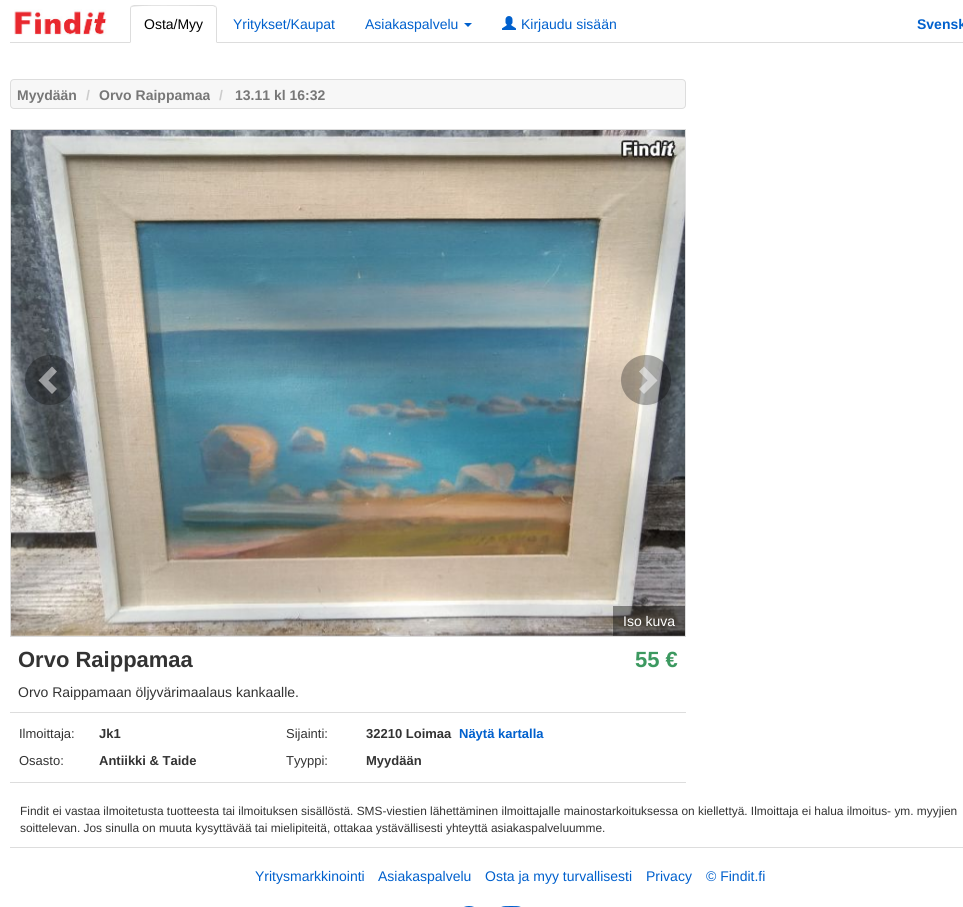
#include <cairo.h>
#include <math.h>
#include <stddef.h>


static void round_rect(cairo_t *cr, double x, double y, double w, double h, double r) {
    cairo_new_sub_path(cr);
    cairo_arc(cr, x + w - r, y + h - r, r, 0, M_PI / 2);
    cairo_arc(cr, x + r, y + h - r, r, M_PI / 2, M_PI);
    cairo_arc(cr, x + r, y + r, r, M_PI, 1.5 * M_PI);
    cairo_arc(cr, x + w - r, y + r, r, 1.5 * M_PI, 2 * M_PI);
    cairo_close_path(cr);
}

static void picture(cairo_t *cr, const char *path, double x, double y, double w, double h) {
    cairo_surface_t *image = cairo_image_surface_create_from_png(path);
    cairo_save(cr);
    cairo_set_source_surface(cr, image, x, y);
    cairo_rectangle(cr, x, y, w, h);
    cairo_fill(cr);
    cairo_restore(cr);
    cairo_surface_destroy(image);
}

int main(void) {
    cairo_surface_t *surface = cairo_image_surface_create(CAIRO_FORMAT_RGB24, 963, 907);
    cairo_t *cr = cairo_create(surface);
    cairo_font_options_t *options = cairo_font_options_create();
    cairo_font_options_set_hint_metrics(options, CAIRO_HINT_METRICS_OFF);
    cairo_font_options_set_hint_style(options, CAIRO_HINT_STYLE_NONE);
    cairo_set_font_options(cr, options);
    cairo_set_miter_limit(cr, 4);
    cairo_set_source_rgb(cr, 1, 1, 1);
    cairo_paint(cr);
    cairo_set_source_rgb(cr, 0.867, 0.867, 0.867);
    cairo_rectangle(cr, 10, 42, 953, 1);
    cairo_fill(cr);
    picture(cr, "img1.png", 14, 9, 93, 26);
    cairo_set_source_rgb(cr, 1, 1, 1);
    cairo_new_path(cr);
    cairo_move_to(cr, 134, 5);
    cairo_line_to(cr, 213, 5);
    cairo_curve_to(cr, 215, 5, 217, 7, 217, 9);
    cairo_line_to(cr, 217, 43);
    cairo_line_to(cr, 130, 43);
    cairo_line_to(cr, 130, 9);
    cairo_curve_to(cr, 130, 7, 132, 5, 134, 5);
    cairo_close_path(cr);
    cairo_fill(cr);
    cairo_set_source_rgb(cr, 0.867, 0.867, 0.867);
    cairo_new_path(cr);
    cairo_move_to(cr, 134, 5);
    cairo_line_to(cr, 131, 6);
    cairo_line_to(cr, 132, 7);
    cairo_curve_to(cr, 134, 5, 193, 6, 200, 6);
    cairo_line_to(cr, 213, 6);
    cairo_line_to(cr, 215, 7);
    cairo_line_to(cr, 216, 6);
    cairo_line_to(cr, 213, 5);
    cairo_close_path(cr);
    cairo_fill(cr);
    cairo_new_path(cr);
    cairo_move_to(cr, 217, 43);
    cairo_line_to(cr, 217, 9);
    cairo_curve_to(cr, 217, 8, 216.5, 7, 216, 6);
    cairo_line_to(cr, 215, 7);
    cairo_curve_to(cr, 216, 7, 216, 8, 216, 9);
    cairo_line_to(cr, 216, 42);
    cairo_close_path(cr);
    cairo_fill(cr);
    cairo_new_path(cr);
    cairo_move_to(cr, 130, 43);
    cairo_line_to(cr, 131, 42);
    cairo_line_to(cr, 131, 9);
    cairo_curve_to(cr, 131, 8, 131, 7, 132, 7);
    cairo_line_to(cr, 131, 6);
    cairo_curve_to(cr, 130.5, 7, 130, 8, 130, 9);
    cairo_close_path(cr);
    cairo_fill(cr);
    cairo_select_font_face(cr, "Liberation Sans", CAIRO_FONT_SLANT_NORMAL, CAIRO_FONT_WEIGHT_NORMAL);
    cairo_set_font_size(cr, 14);
    cairo_set_source_rgb(cr, 0, 0, 0);
    cairo_move_to(cr, 144, 29);
    cairo_show_text(cr, "Osta/Myy");
    cairo_set_source_rgb(cr, 0, 0.376, 0.804);
    cairo_move_to(cr, 233, 29);
    cairo_show_text(cr, "Yritykset/Kaupat");
    cairo_move_to(cr, 365, 29);
    cairo_show_text(cr, "Asiakaspalvelu");
    cairo_new_path(cr);
    cairo_move_to(cr, 464, 23);
    cairo_line_to(cr, 472, 23);
    cairo_line_to(cr, 468, 27);
    cairo_close_path(cr);
    cairo_fill(cr);
    picture(cr, "img2.png", 502, 16, 14, 14);
    cairo_move_to(cr, 521, 29);
    cairo_show_text(cr, "Kirjaudu sisään");
    cairo_select_font_face(cr, "Liberation Sans", CAIRO_FONT_SLANT_NORMAL, CAIRO_FONT_WEIGHT_BOLD);
    cairo_move_to(cr, 917, 29);
    cairo_show_text(cr, "Svensk");
    cairo_set_source_rgb(cr, 0.965, 0.965, 0.965);
    round_rect(cr, 10.5, 79.5, 675, 29, 3.5);
    cairo_fill_preserve(cr);
    cairo_set_source_rgb(cr, 0.867, 0.867, 0.867);
    cairo_set_line_width(cr, 1);
    cairo_stroke(cr);
    cairo_set_source_rgb(cr, 0.467, 0.467, 0.467);
    cairo_move_to(cr, 17, 100);
    cairo_show_text(cr, "Myydään");
    cairo_set_source_rgb(cr, 0.8, 0.8, 0.8);
    cairo_move_to(cr, 86, 100);
    cairo_show_text(cr, "/");
    cairo_set_source_rgb(cr, 0.467, 0.467, 0.467);
    cairo_move_to(cr, 99, 100);
    cairo_show_text(cr, "Orvo Raippamaa");
    cairo_set_source_rgb(cr, 0.8, 0.8, 0.8);
    cairo_move_to(cr, 219, 100);
    cairo_show_text(cr, "/");
    cairo_set_source_rgb(cr, 0.467, 0.467, 0.467);
    cairo_move_to(cr, 235, 100);
    cairo_show_text(cr, "13.11 kl 16:32");
    cairo_rectangle(cr, 10.5, 129.5, 675, 507);
    cairo_set_source_rgb(cr, 0.867, 0.867, 0.867);
    cairo_stroke(cr);
    picture(cr, "img3.png", 11, 130, 674, 506);
    cairo_set_source_rgba(cr, 0, 0, 0, 0.3);
    cairo_arc(cr, 50, 380, 25, 0, 2 * M_PI);
    cairo_fill(cr);
    cairo_set_source_rgba(cr, 1, 1, 1, 0.5);
    cairo_new_path(cr);
    cairo_move_to(cr, 57, 371.5);
    cairo_line_to(cr, 48.5, 380.5);
    cairo_line_to(cr, 57, 389);
    cairo_line_to(cr, 52, 394);
    cairo_line_to(cr, 38.5, 380.5);
    cairo_line_to(cr, 52, 366.5);
    cairo_close_path(cr);
    cairo_fill(cr);
    cairo_set_source_rgba(cr, 0, 0, 0, 0.3);
    cairo_arc(cr, 646, 380, 25, 0, 2 * M_PI);
    cairo_fill(cr);
    cairo_set_source_rgba(cr, 1, 1, 1, 0.5);
    cairo_new_path(cr);
    cairo_move_to(cr, 657.5, 380.5);
    cairo_line_to(cr, 644, 394);
    cairo_line_to(cr, 639, 389);
    cairo_line_to(cr, 647.5, 380.5);
    cairo_line_to(cr, 639, 371.5);
    cairo_line_to(cr, 644, 366.5);
    cairo_close_path(cr);
    cairo_fill(cr);
    cairo_set_source_rgba(cr, 0, 0, 0, 0.4);
    cairo_rectangle(cr, 613, 606, 72, 30);
    cairo_fill(cr);
    cairo_select_font_face(cr, "Liberation Sans", CAIRO_FONT_SLANT_NORMAL, CAIRO_FONT_WEIGHT_NORMAL);
    cairo_set_source_rgb(cr, 1, 1, 1);
    cairo_move_to(cr, 623, 626);
    cairo_show_text(cr, "Iso kuva");
    cairo_select_font_face(cr, "Liberation Sans", CAIRO_FONT_SLANT_NORMAL, CAIRO_FONT_WEIGHT_BOLD);
    cairo_set_font_size(cr, 22);
    cairo_set_source_rgb(cr, 0.2, 0.2, 0.2);
    cairo_move_to(cr, 18, 667);
    cairo_show_text(cr, "Orvo Raippamaa");
    cairo_set_source_rgb(cr, 0.235, 0.6, 0.376);
    cairo_move_to(cr, 635, 667);
    cairo_show_text(cr, "55 €");
    cairo_select_font_face(cr, "Liberation Sans", CAIRO_FONT_SLANT_NORMAL, CAIRO_FONT_WEIGHT_NORMAL);
    cairo_set_font_size(cr, 14);
    cairo_set_source_rgb(cr, 0.2, 0.2, 0.2);
    cairo_move_to(cr, 18, 697);
    cairo_show_text(cr, "Orvo Raippamaan öljyvärimaalaus kankaalle.");
    cairo_set_source_rgb(cr, 0.867, 0.867, 0.867);
    cairo_rectangle(cr, 10, 712, 676, 1);
    cairo_fill(cr);
    cairo_rectangle(cr, 10, 782, 676, 1);
    cairo_fill(cr);
    cairo_set_font_size(cr, 13);
    cairo_set_source_rgb(cr, 0.2, 0.2, 0.2);
    cairo_move_to(cr, 19, 738);
    cairo_show_text(cr, "Ilmoittaja:");
    cairo_select_font_face(cr, "Liberation Sans", CAIRO_FONT_SLANT_NORMAL, CAIRO_FONT_WEIGHT_BOLD);
    cairo_move_to(cr, 99, 738);
    cairo_show_text(cr, "Jk1");
    cairo_select_font_face(cr, "Liberation Sans", CAIRO_FONT_SLANT_NORMAL, CAIRO_FONT_WEIGHT_NORMAL);
    cairo_move_to(cr, 286, 738);
    cairo_show_text(cr, "Sijainti:");
    cairo_select_font_face(cr, "Liberation Sans", CAIRO_FONT_SLANT_NORMAL, CAIRO_FONT_WEIGHT_BOLD);
    cairo_move_to(cr, 366, 738);
    cairo_show_text(cr, "32210 Loimaa");
    cairo_set_source_rgb(cr, 0, 0.376, 0.804);
    cairo_move_to(cr, 459, 738);
    cairo_show_text(cr, "Näytä kartalla");
    cairo_select_font_face(cr, "Liberation Sans", CAIRO_FONT_SLANT_NORMAL, CAIRO_FONT_WEIGHT_NORMAL);
    cairo_set_source_rgb(cr, 0.2, 0.2, 0.2);
    cairo_move_to(cr, 19, 765);
    cairo_show_text(cr, "Osasto:");
    cairo_select_font_face(cr, "Liberation Sans", CAIRO_FONT_SLANT_NORMAL, CAIRO_FONT_WEIGHT_BOLD);
    cairo_move_to(cr, 99, 765);
    cairo_show_text(cr, "Antiikki & Taide");
    cairo_select_font_face(cr, "Liberation Sans", CAIRO_FONT_SLANT_NORMAL, CAIRO_FONT_WEIGHT_NORMAL);
    cairo_move_to(cr, 286, 765);
    cairo_show_text(cr, "Tyyppi:");
    cairo_select_font_face(cr, "Liberation Sans", CAIRO_FONT_SLANT_NORMAL, CAIRO_FONT_WEIGHT_BOLD);
    cairo_move_to(cr, 366, 765);
    cairo_show_text(cr, "Myydään");
    cairo_select_font_face(cr, "Liberation Sans", CAIRO_FONT_SLANT_NORMAL, CAIRO_FONT_WEIGHT_NORMAL);
    cairo_set_font_size(cr, 11.9);
    cairo_move_to(cr, 20, 815);
    cairo_show_text(cr, "Findit ei vastaa ilmoitetusta tuotteesta tai ilmoituksen sisällöstä. SMS-viestien lähettäminen ilmoittajalle mainostarkoituksessa on kiellettyä. Ilmoittaja ei halua ilmoitus- ym. myyjien");
    cairo_move_to(cr, 20, 832);
    cairo_show_text(cr, "soittelevan. Jos sinulla on muuta kysyttävää tai mielipiteitä, ottakaa ystävällisesti yhteyttä asiakaspalveluumme.");
    cairo_set_source_rgb(cr, 0.867, 0.867, 0.867);
    cairo_rectangle(cr, 10, 847, 953, 1);
    cairo_fill(cr);
    cairo_set_font_size(cr, 14);
    cairo_set_source_rgb(cr, 0, 0.376, 0.804);
    cairo_move_to(cr, 255, 881);
    cairo_show_text(cr, "Yritysmarkkinointi");
    cairo_move_to(cr, 378, 881);
    cairo_show_text(cr, "Asiakaspalvelu");
    cairo_move_to(cr, 485, 881);
    cairo_show_text(cr, "Osta ja myy turvallisesti");
    cairo_move_to(cr, 646, 881);
    cairo_show_text(cr, "Privacy");
    cairo_move_to(cr, 706, 881);
    cairo_show_text(cr, "© Findit.fi");
    picture(cr, "img4.png", 464, 906, 10, 1);
    picture(cr, "img5.png", 501, 906, 20, 1);
    cairo_surface_write_to_png(surface, "page.png");
    cairo_font_options_destroy(options);
    cairo_destroy(cr);
    cairo_surface_destroy(surface);
    return 0;
}
